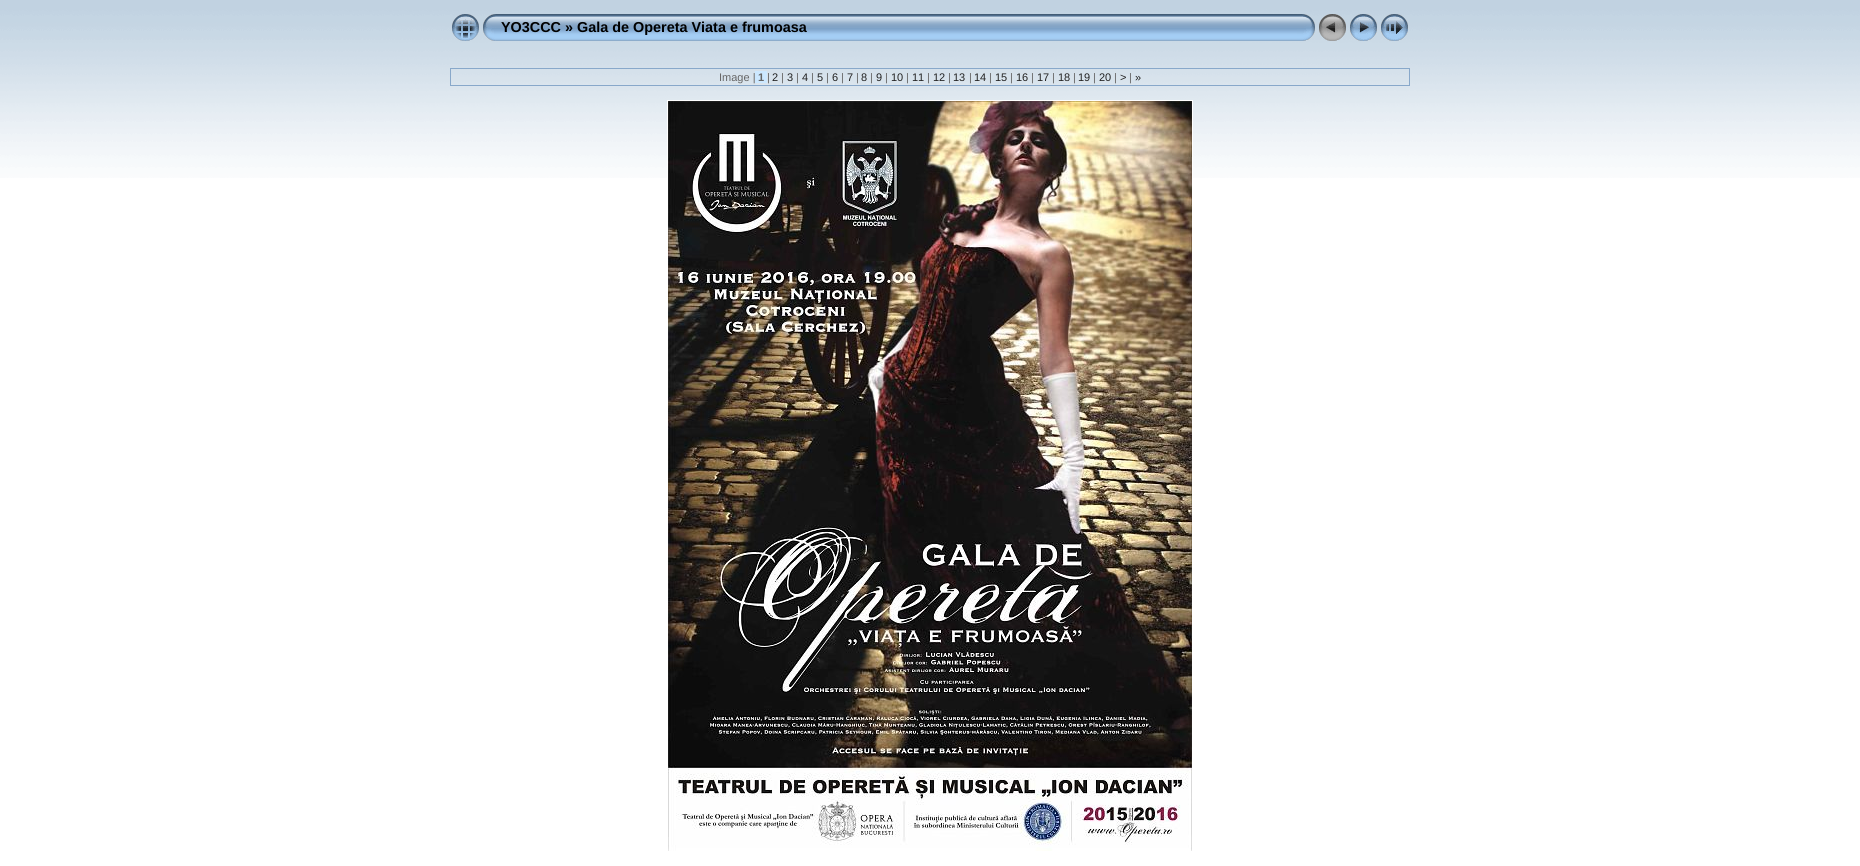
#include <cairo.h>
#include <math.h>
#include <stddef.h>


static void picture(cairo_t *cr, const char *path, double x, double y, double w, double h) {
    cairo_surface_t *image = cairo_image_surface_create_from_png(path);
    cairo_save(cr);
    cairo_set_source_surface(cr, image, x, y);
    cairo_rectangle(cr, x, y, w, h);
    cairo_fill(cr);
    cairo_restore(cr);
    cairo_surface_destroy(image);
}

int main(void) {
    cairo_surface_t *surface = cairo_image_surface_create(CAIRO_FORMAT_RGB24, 1860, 866);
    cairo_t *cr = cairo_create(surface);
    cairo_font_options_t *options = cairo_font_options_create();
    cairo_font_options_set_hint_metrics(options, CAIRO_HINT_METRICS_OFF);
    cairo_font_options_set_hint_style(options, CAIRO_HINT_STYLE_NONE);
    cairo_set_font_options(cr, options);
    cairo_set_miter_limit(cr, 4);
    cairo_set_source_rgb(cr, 1, 1, 1);
    cairo_paint(cr);
    picture(cr, "img1.png", 0, 0, 1860, 178);
    picture(cr, "img2.png", 452, 14, 27, 27);
    picture(cr, "img3.png", 483, 14, 18, 27);
    picture(cr, "img4.png", 501, 14, 796, 27);
    cairo_select_font_face(cr, "Liberation Sans", CAIRO_FONT_SLANT_NORMAL, CAIRO_FONT_WEIGHT_BOLD);
    cairo_set_font_size(cr, 14.4);
    cairo_set_source_rgb(cr, 0, 0, 0);
    cairo_move_to(cr, 501, 32);
    cairo_show_text(cr, "YO3CCC » Gala de Opereta Viata e frumoasa");
    picture(cr, "img5.png", 1297, 14, 18, 27);
    picture(cr, "img6.png", 1319, 14, 27, 27);
    picture(cr, "img7.png", 1350, 14, 27, 27);
    picture(cr, "img8.png", 1381, 14, 27, 27);
    cairo_set_source_rgb(cr, 0.533, 0.659, 0.792);
    cairo_rectangle(cr, 450, 68, 960, 1);
    cairo_fill(cr);
    cairo_rectangle(cr, 1409, 68, 1, 18);
    cairo_fill(cr);
    cairo_rectangle(cr, 450, 85, 960, 1);
    cairo_fill(cr);
    cairo_rectangle(cr, 450, 68, 1, 18);
    cairo_fill(cr);
    cairo_select_font_face(cr, "Liberation Sans", CAIRO_FONT_SLANT_NORMAL, CAIRO_FONT_WEIGHT_NORMAL);
    cairo_set_font_size(cr, 11);
    cairo_set_source_rgb(cr, 0.4, 0.4, 0.4);
    cairo_move_to(cr, 719, 81);
    cairo_show_text(cr, "Image |");
    cairo_set_source_rgb(cr, 0.8, 0.91, 1);
    cairo_rectangle(cr, 755, 71, 12, 12);
    cairo_fill(cr);
    cairo_select_font_face(cr, "Liberation Sans", CAIRO_FONT_SLANT_NORMAL, CAIRO_FONT_WEIGHT_BOLD);
    cairo_set_source_rgb(cr, 0.4, 0.4, 0.4);
    cairo_move_to(cr, 758, 81);
    cairo_show_text(cr, "1");
    cairo_select_font_face(cr, "Liberation Sans", CAIRO_FONT_SLANT_NORMAL, CAIRO_FONT_WEIGHT_NORMAL);
    cairo_move_to(cr, 767, 81);
    cairo_show_text(cr, "|");
    cairo_set_source_rgb(cr, 0.133, 0.133, 0.133);
    cairo_move_to(cr, 772, 81);
    cairo_show_text(cr, "2");
    cairo_set_source_rgb(cr, 0.4, 0.4, 0.4);
    cairo_move_to(cr, 781, 81);
    cairo_show_text(cr, "|");
    cairo_set_source_rgb(cr, 0.133, 0.133, 0.133);
    cairo_move_to(cr, 787, 81);
    cairo_show_text(cr, "3");
    cairo_set_source_rgb(cr, 0.4, 0.4, 0.4);
    cairo_move_to(cr, 796, 81);
    cairo_show_text(cr, "|");
    cairo_set_source_rgb(cr, 0.133, 0.133, 0.133);
    cairo_move_to(cr, 802, 81);
    cairo_show_text(cr, "4");
    cairo_set_source_rgb(cr, 0.4, 0.4, 0.4);
    cairo_move_to(cr, 811, 81);
    cairo_show_text(cr, "|");
    cairo_set_source_rgb(cr, 0.133, 0.133, 0.133);
    cairo_move_to(cr, 817, 81);
    cairo_show_text(cr, "5");
    cairo_set_source_rgb(cr, 0.4, 0.4, 0.4);
    cairo_move_to(cr, 826, 81);
    cairo_show_text(cr, "|");
    cairo_set_source_rgb(cr, 0.133, 0.133, 0.133);
    cairo_move_to(cr, 832, 81);
    cairo_show_text(cr, "6");
    cairo_set_source_rgb(cr, 0.4, 0.4, 0.4);
    cairo_move_to(cr, 841, 81);
    cairo_show_text(cr, "|");
    cairo_set_source_rgb(cr, 0.133, 0.133, 0.133);
    cairo_move_to(cr, 847, 81);
    cairo_show_text(cr, "7");
    cairo_set_source_rgb(cr, 0.4, 0.4, 0.4);
    cairo_move_to(cr, 856, 81);
    cairo_show_text(cr, "|");
    cairo_set_source_rgb(cr, 0.133, 0.133, 0.133);
    cairo_move_to(cr, 861, 81);
    cairo_show_text(cr, "8");
    cairo_set_source_rgb(cr, 0.4, 0.4, 0.4);
    cairo_move_to(cr, 870, 81);
    cairo_show_text(cr, "|");
    cairo_set_source_rgb(cr, 0.133, 0.133, 0.133);
    cairo_move_to(cr, 876, 81);
    cairo_show_text(cr, "9");
    cairo_set_source_rgb(cr, 0.4, 0.4, 0.4);
    cairo_move_to(cr, 885, 81);
    cairo_show_text(cr, "|");
    cairo_set_source_rgb(cr, 0.133, 0.133, 0.133);
    cairo_move_to(cr, 891, 81);
    cairo_show_text(cr, "10");
    cairo_set_source_rgb(cr, 0.4, 0.4, 0.4);
    cairo_move_to(cr, 906, 81);
    cairo_show_text(cr, "|");
    cairo_set_source_rgb(cr, 0.133, 0.133, 0.133);
    cairo_move_to(cr, 912, 81);
    cairo_show_text(cr, "11");
    cairo_set_source_rgb(cr, 0.4, 0.4, 0.4);
    cairo_move_to(cr, 927, 81);
    cairo_show_text(cr, "|");
    cairo_set_source_rgb(cr, 0.133, 0.133, 0.133);
    cairo_move_to(cr, 933, 81);
    cairo_show_text(cr, "12");
    cairo_set_source_rgb(cr, 0.4, 0.4, 0.4);
    cairo_move_to(cr, 948, 81);
    cairo_show_text(cr, "|");
    cairo_set_source_rgb(cr, 0.133, 0.133, 0.133);
    cairo_move_to(cr, 953, 81);
    cairo_show_text(cr, "13");
    cairo_set_source_rgb(cr, 0.4, 0.4, 0.4);
    cairo_move_to(cr, 969, 81);
    cairo_show_text(cr, "|");
    cairo_set_source_rgb(cr, 0.133, 0.133, 0.133);
    cairo_move_to(cr, 974, 81);
    cairo_show_text(cr, "14");
    cairo_set_source_rgb(cr, 0.4, 0.4, 0.4);
    cairo_move_to(cr, 989, 81);
    cairo_show_text(cr, "|");
    cairo_set_source_rgb(cr, 0.133, 0.133, 0.133);
    cairo_move_to(cr, 995, 81);
    cairo_show_text(cr, "15");
    cairo_set_source_rgb(cr, 0.4, 0.4, 0.4);
    cairo_move_to(cr, 1010, 81);
    cairo_show_text(cr, "|");
    cairo_set_source_rgb(cr, 0.133, 0.133, 0.133);
    cairo_move_to(cr, 1016, 81);
    cairo_show_text(cr, "16");
    cairo_set_source_rgb(cr, 0.4, 0.4, 0.4);
    cairo_move_to(cr, 1031, 81);
    cairo_show_text(cr, "|");
    cairo_set_source_rgb(cr, 0.133, 0.133, 0.133);
    cairo_move_to(cr, 1037, 81);
    cairo_show_text(cr, "17");
    cairo_set_source_rgb(cr, 0.4, 0.4, 0.4);
    cairo_move_to(cr, 1052, 81);
    cairo_show_text(cr, "|");
    cairo_set_source_rgb(cr, 0.133, 0.133, 0.133);
    cairo_move_to(cr, 1058, 81);
    cairo_show_text(cr, "18");
    cairo_set_source_rgb(cr, 0.4, 0.4, 0.4);
    cairo_move_to(cr, 1073, 81);
    cairo_show_text(cr, "|");
    cairo_set_source_rgb(cr, 0.133, 0.133, 0.133);
    cairo_move_to(cr, 1078, 81);
    cairo_show_text(cr, "19");
    cairo_set_source_rgb(cr, 0.4, 0.4, 0.4);
    cairo_move_to(cr, 1093, 81);
    cairo_show_text(cr, "|");
    cairo_set_source_rgb(cr, 0.133, 0.133, 0.133);
    cairo_move_to(cr, 1099, 81);
    cairo_show_text(cr, "20");
    cairo_set_source_rgb(cr, 0.4, 0.4, 0.4);
    cairo_move_to(cr, 1114, 81);
    cairo_show_text(cr, "|");
    cairo_set_source_rgb(cr, 0.133, 0.133, 0.133);
    cairo_move_to(cr, 1120, 81);
    cairo_show_text(cr, ">");
    cairo_set_source_rgb(cr, 0.4, 0.4, 0.4);
    cairo_move_to(cr, 1129, 81);
    cairo_show_text(cr, "|");
    cairo_set_source_rgb(cr, 0.133, 0.133, 0.133);
    cairo_move_to(cr, 1135, 81);
    cairo_show_text(cr, "»");
    cairo_rectangle(cr, 667.5, 100.5, 525, 751);
    cairo_set_source_rgb(cr, 1, 1, 1);
    cairo_set_line_width(cr, 1);
    cairo_stroke(cr);
    picture(cr, "img9.png", 668, 101, 524, 750);
    cairo_surface_write_to_png(surface, "page.png");
    cairo_font_options_destroy(options);
    cairo_destroy(cr);
    cairo_surface_destroy(surface);
    return 0;
}
